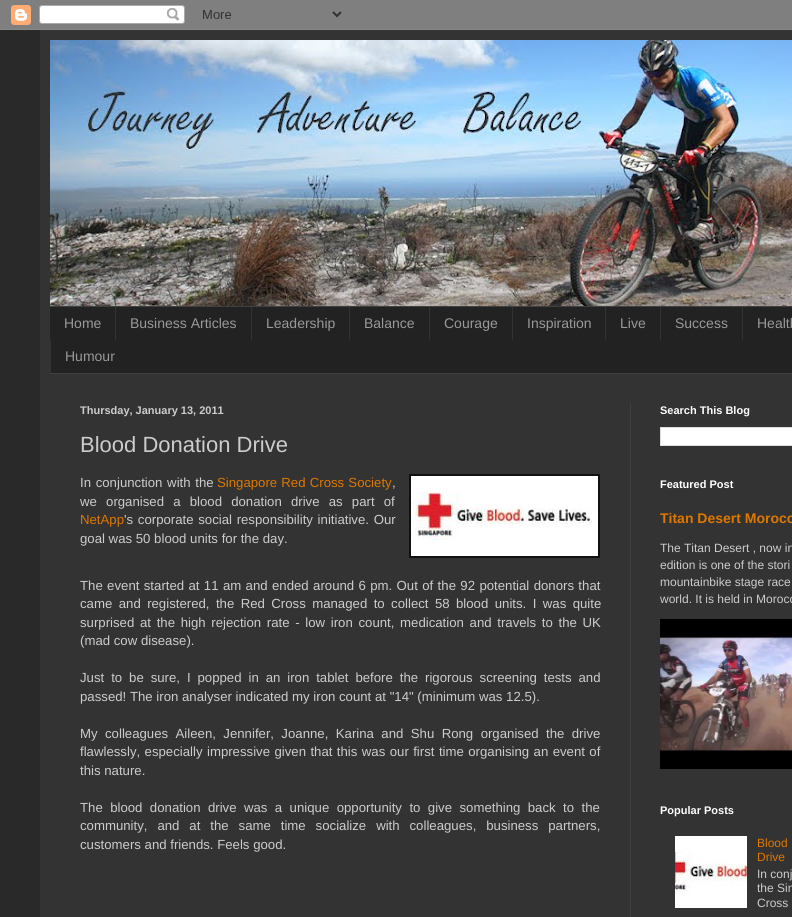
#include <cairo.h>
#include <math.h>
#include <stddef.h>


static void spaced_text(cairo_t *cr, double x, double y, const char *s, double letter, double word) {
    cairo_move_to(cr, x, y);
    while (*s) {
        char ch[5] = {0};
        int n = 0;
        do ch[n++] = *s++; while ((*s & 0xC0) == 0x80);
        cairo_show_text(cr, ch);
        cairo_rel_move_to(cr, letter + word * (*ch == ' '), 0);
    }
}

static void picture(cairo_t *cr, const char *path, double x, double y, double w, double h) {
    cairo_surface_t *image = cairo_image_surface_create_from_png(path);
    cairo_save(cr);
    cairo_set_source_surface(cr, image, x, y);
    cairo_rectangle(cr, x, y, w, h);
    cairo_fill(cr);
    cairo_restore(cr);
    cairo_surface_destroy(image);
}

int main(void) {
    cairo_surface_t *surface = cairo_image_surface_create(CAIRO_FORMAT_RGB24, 792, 917);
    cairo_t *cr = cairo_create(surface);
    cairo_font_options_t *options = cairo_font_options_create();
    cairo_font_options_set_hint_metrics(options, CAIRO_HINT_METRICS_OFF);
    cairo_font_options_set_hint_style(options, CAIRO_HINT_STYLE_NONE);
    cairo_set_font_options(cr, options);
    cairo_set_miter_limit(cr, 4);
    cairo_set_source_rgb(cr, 0.161, 0.161, 0.161);
    cairo_paint(cr);
    picture(cr, "img1.png", 0, 0, 792, 30);
    cairo_set_source_rgb(cr, 0.2, 0.2, 0.2);
    cairo_rectangle(cr, 40, 30, 752, 887);
    cairo_fill(cr);
    picture(cr, "img2.png", 50, 40, 742, 266);
    cairo_set_source_rgb(cr, 0.133, 0.133, 0.133);
    cairo_rectangle(cr, 50, 307, 742, 66);
    cairo_fill(cr);
    cairo_set_source_rgb(cr, 0.251, 0.251, 0.251);
    cairo_rectangle(cr, 50, 306, 742, 1);
    cairo_fill(cr);
    cairo_rectangle(cr, 50, 373, 742, 1);
    cairo_fill(cr);
    cairo_select_font_face(cr, "Liberation Sans", CAIRO_FONT_SLANT_NORMAL, CAIRO_FONT_WEIGHT_NORMAL);
    cairo_set_font_size(cr, 14);
    cairo_set_source_rgb(cr, 0.6, 0.6, 0.6);
    cairo_move_to(cr, 64, 328);
    cairo_show_text(cr, "Home");
    cairo_set_source_rgb(cr, 0.2, 0.2, 0.2);
    cairo_rectangle(cr, 115, 307, 1, 33);
    cairo_fill(cr);
    cairo_set_source_rgb(cr, 0.6, 0.6, 0.6);
    cairo_move_to(cr, 130, 328);
    cairo_show_text(cr, "Business Articles");
    cairo_set_source_rgb(cr, 0.2, 0.2, 0.2);
    cairo_rectangle(cr, 251, 307, 1, 33);
    cairo_fill(cr);
    cairo_set_source_rgb(cr, 0.6, 0.6, 0.6);
    cairo_move_to(cr, 266, 328);
    cairo_show_text(cr, "Leadership");
    cairo_set_source_rgb(cr, 0.2, 0.2, 0.2);
    cairo_rectangle(cr, 349, 307, 1, 33);
    cairo_fill(cr);
    cairo_set_source_rgb(cr, 0.6, 0.6, 0.6);
    cairo_move_to(cr, 364, 328);
    cairo_show_text(cr, "Balance");
    cairo_set_source_rgb(cr, 0.2, 0.2, 0.2);
    cairo_rectangle(cr, 429, 307, 1, 33);
    cairo_fill(cr);
    cairo_set_source_rgb(cr, 0.6, 0.6, 0.6);
    cairo_move_to(cr, 444, 328);
    cairo_show_text(cr, "Courage");
    cairo_set_source_rgb(cr, 0.2, 0.2, 0.2);
    cairo_rectangle(cr, 512, 307, 1, 33);
    cairo_fill(cr);
    cairo_set_source_rgb(cr, 0.6, 0.6, 0.6);
    cairo_move_to(cr, 527, 328);
    cairo_show_text(cr, "Inspiration");
    cairo_set_source_rgb(cr, 0.2, 0.2, 0.2);
    cairo_rectangle(cr, 605, 307, 1, 33);
    cairo_fill(cr);
    cairo_set_source_rgb(cr, 0.6, 0.6, 0.6);
    cairo_move_to(cr, 620, 328);
    cairo_show_text(cr, "Live");
    cairo_set_source_rgb(cr, 0.2, 0.2, 0.2);
    cairo_rectangle(cr, 660, 307, 1, 33);
    cairo_fill(cr);
    cairo_set_source_rgb(cr, 0.6, 0.6, 0.6);
    cairo_move_to(cr, 675, 328);
    cairo_show_text(cr, "Success");
    cairo_set_source_rgb(cr, 0.2, 0.2, 0.2);
    cairo_rectangle(cr, 742, 307, 1, 33);
    cairo_fill(cr);
    cairo_set_source_rgb(cr, 0.6, 0.6, 0.6);
    cairo_move_to(cr, 757, 328);
    cairo_show_text(cr, "Health");
    cairo_set_source_rgb(cr, 0.2, 0.2, 0.2);
    cairo_rectangle(cr, 50, 340, 1, 33);
    cairo_fill(cr);
    cairo_set_source_rgb(cr, 0.6, 0.6, 0.6);
    cairo_move_to(cr, 65, 361);
    cairo_show_text(cr, "Humour");
    cairo_set_source_rgb(cr, 0.251, 0.251, 0.251);
    cairo_rectangle(cr, 630, 404, 1, 513);
    cairo_fill(cr);
    cairo_select_font_face(cr, "Liberation Sans", CAIRO_FONT_SLANT_NORMAL, CAIRO_FONT_WEIGHT_BOLD);
    cairo_set_font_size(cr, 11);
    cairo_set_source_rgb(cr, 0.8, 0.8, 0.8);
    cairo_move_to(cr, 80, 414);
    cairo_show_text(cr, "Thursday, January 13, 2011");
    cairo_select_font_face(cr, "Liberation Sans", CAIRO_FONT_SLANT_NORMAL, CAIRO_FONT_WEIGHT_NORMAL);
    cairo_set_font_size(cr, 22);
    cairo_move_to(cr, 80, 452);
    cairo_show_text(cr, "Blood Donation Drive");
    cairo_set_font_size(cr, 13.2);
    spaced_text(cr, 80, 487, "In conjunction with the", 0, 1);
    cairo_set_source_rgb(cr, 0.867, 0.467, 0);
    spaced_text(cr, 217, 487, "Singapore Red Cross Society", 0, 0.5);
    cairo_set_source_rgb(cr, 0.8, 0.8, 0.8);
    cairo_move_to(cr, 392, 487);
    cairo_show_text(cr, ",");
    cairo_set_source_rgb(cr, 0.067, 0.067, 0.067);
    cairo_rectangle(cr, 409, 474, 191, 84);
    cairo_fill(cr);
    picture(cr, "img3.png", 411, 476, 187, 80);
    cairo_set_source_rgb(cr, 0.8, 0.8, 0.8);
    spaced_text(cr, 80, 506, "we organised a blood donation drive as part of", 0, 5.5);
    cairo_set_source_rgb(cr, 0.867, 0.467, 0);
    cairo_move_to(cr, 80, 524);
    cairo_show_text(cr, "NetApp");
    cairo_set_source_rgb(cr, 0.8, 0.8, 0.8);
    spaced_text(cr, 124, 524, "'s corporate social responsibility initiative. Our", 0, 1);
    cairo_move_to(cr, 80, 543);
    cairo_show_text(cr, "goal was 50 blood units for the day.");
    spaced_text(cr, 80, 590, "The event started at 11 am and ended around 6 pm. Out of the 92 potential donors that", 0, 0.7);
    spaced_text(cr, 80, 608, "came and registered, the Red Cross managed to collect 58 blood units. I was quite", 0, 2.75);
    spaced_text(cr, 80, 627, "surprised at the high rejection rate - low iron count, medication and travels to the UK", 0, 2);
    cairo_move_to(cr, 80, 645);
    cairo_show_text(cr, "(mad cow disease).");
    spaced_text(cr, 80, 682, "Just to be sure, I popped in an iron tablet before the rigorous screening tests and", 0, 3.25);
    cairo_move_to(cr, 80, 701);
    cairo_show_text(cr, "passed! The iron analyser indicated my iron count at \"14\" (minimum was 12.5).");
    spaced_text(cr, 80, 738, "My colleagues Aileen, Jennifer, Joanne, Karina and Shu Rong organised the drive", 0, 3.75);
    spaced_text(cr, 80, 756, "flawlessly, especially impressive given that this was our first time organising an event of", 0, 0.75);
    cairo_move_to(cr, 80, 775);
    cairo_show_text(cr, "this nature.");
    spaced_text(cr, 80, 812, "The blood donation drive was a unique opportunity to give something back to the", 0, 3.75);
    spaced_text(cr, 80, 830, "community, and at the same time socialize with colleagues, business partners,", 0, 6.25);
    cairo_move_to(cr, 80, 849);
    cairo_show_text(cr, "customers and friends. Feels good.");
    cairo_select_font_face(cr, "Liberation Sans", CAIRO_FONT_SLANT_NORMAL, CAIRO_FONT_WEIGHT_BOLD);
    cairo_set_font_size(cr, 11);
    cairo_set_source_rgb(cr, 1, 1, 1);
    cairo_move_to(cr, 660, 414);
    cairo_show_text(cr, "Search This Blog");
    cairo_rectangle(cr, 660.5, 427.5, 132, 18);
    cairo_fill_preserve(cr);
    cairo_set_source_rgb(cr, 0.867, 0.867, 0.867);
    cairo_set_line_width(cr, 1);
    cairo_stroke(cr);
    cairo_set_source_rgb(cr, 1, 1, 1);
    cairo_move_to(cr, 660, 488);
    cairo_show_text(cr, "Featured Post");
    cairo_set_font_size(cr, 14);
    cairo_set_source_rgb(cr, 0.867, 0.467, 0);
    cairo_move_to(cr, 660, 523);
    cairo_show_text(cr, "Titan Desert Morocc");
    cairo_select_font_face(cr, "Liberation Sans", CAIRO_FONT_SLANT_NORMAL, CAIRO_FONT_WEIGHT_NORMAL);
    cairo_set_font_size(cr, 12);
    cairo_set_source_rgb(cr, 0.8, 0.8, 0.8);
    cairo_move_to(cr, 660, 552);
    cairo_show_text(cr, "The Titan Desert , now in");
    cairo_move_to(cr, 660, 569);
    cairo_show_text(cr, "edition is one of the stori");
    cairo_move_to(cr, 660, 586);
    cairo_show_text(cr, "mountainbike stage race");
    cairo_move_to(cr, 660, 603);
    cairo_show_text(cr, "world. It is held in Morocc");
    picture(cr, "img4.png", 660, 619, 132, 150);
    cairo_select_font_face(cr, "Liberation Sans", CAIRO_FONT_SLANT_NORMAL, CAIRO_FONT_WEIGHT_BOLD);
    cairo_set_font_size(cr, 11);
    cairo_set_source_rgb(cr, 1, 1, 1);
    cairo_move_to(cr, 660, 814);
    cairo_show_text(cr, "Popular Posts");
    picture(cr, "img5.png", 675, 836, 72, 72);
    cairo_select_font_face(cr, "Liberation Sans", CAIRO_FONT_SLANT_NORMAL, CAIRO_FONT_WEIGHT_NORMAL);
    cairo_set_font_size(cr, 12);
    cairo_set_source_rgb(cr, 0.867, 0.467, 0);
    cairo_move_to(cr, 757, 847);
    cairo_show_text(cr, "Blood");
    cairo_move_to(cr, 757, 861);
    cairo_show_text(cr, "Drive");
    cairo_set_source_rgb(cr, 0.8, 0.8, 0.8);
    cairo_move_to(cr, 757, 878);
    cairo_show_text(cr, "In conj");
    cairo_move_to(cr, 757, 892);
    cairo_show_text(cr, "the Sin");
    cairo_move_to(cr, 757, 907);
    cairo_show_text(cr, "Cross");
    cairo_surface_write_to_png(surface, "page.png");
    cairo_font_options_destroy(options);
    cairo_destroy(cr);
    cairo_surface_destroy(surface);
    return 0;
}
